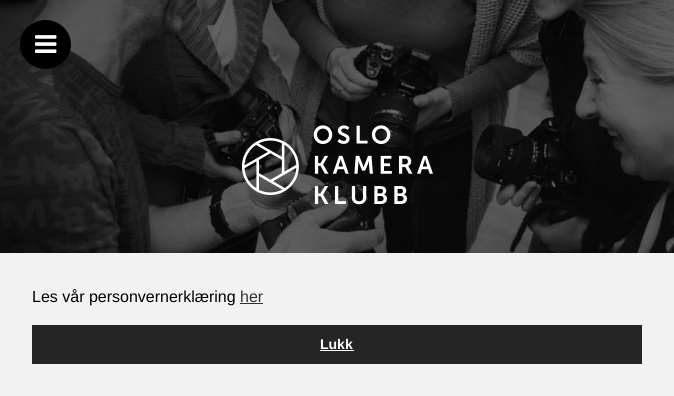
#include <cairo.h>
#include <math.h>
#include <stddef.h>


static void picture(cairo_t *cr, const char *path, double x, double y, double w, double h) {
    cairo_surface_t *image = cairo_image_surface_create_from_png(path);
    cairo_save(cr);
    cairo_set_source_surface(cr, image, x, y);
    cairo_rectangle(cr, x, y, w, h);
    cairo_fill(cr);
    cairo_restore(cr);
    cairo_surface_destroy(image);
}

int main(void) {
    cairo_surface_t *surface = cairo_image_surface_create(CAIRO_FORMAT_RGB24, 674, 396);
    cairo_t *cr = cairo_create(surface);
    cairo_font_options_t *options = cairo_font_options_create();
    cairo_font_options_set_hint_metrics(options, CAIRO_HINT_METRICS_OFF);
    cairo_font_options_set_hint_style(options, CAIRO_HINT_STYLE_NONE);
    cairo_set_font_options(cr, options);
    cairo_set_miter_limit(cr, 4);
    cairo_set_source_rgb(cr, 1, 1, 1);
    cairo_paint(cr);
    picture(cr, "img1.png", 0, 0, 674, 253);
    cairo_set_source_rgb(cr, 0, 0, 0);
    cairo_new_path(cr);
    cairo_move_to(cr, 45.5, 20);
    cairo_curve_to(cr, 59.5, 20, 71, 31, 71, 44.5);
    cairo_curve_to(cr, 71, 58, 59.5, 69, 45.5, 69);
    cairo_curve_to(cr, 31.5, 69, 20, 58, 20, 44.5);
    cairo_curve_to(cr, 20, 31, 31.5, 20, 45.5, 20);
    cairo_close_path(cr);
    cairo_fill(cr);
    picture(cr, "img2.png", 35, 35, 22, 18);
    picture(cr, "img3.png", 241, 125, 192, 80);
    cairo_set_source_rgb(cr, 0.949, 0.949, 0.949);
    cairo_rectangle(cr, 0, 253, 674, 143);
    cairo_fill(cr);
    cairo_select_font_face(cr, "Liberation Sans", CAIRO_FONT_SLANT_NORMAL, CAIRO_FONT_WEIGHT_NORMAL);
    cairo_set_font_size(cr, 16);
    cairo_set_source_rgb(cr, 0, 0, 0);
    cairo_move_to(cr, 32, 302);
    cairo_show_text(cr, "Les vår personvernerklæring");
    cairo_set_source_rgb(cr, 0.188, 0.188, 0.188);
    cairo_move_to(cr, 240, 302);
    cairo_show_text(cr, "her");
    cairo_rectangle(cr, 240, 303, 23, 1);
    cairo_fill(cr);
    cairo_set_source_rgb(cr, 0.145, 0.145, 0.145);
    cairo_rectangle(cr, 32, 325, 610, 39);
    cairo_fill(cr);
    cairo_select_font_face(cr, "Liberation Sans", CAIRO_FONT_SLANT_NORMAL, CAIRO_FONT_WEIGHT_BOLD);
    cairo_set_font_size(cr, 14);
    cairo_set_source_rgb(cr, 1, 1, 1);
    cairo_move_to(cr, 320, 349);
    cairo_show_text(cr, "Lukk");
    cairo_rectangle(cr, 320, 350, 34, 1);
    cairo_fill(cr);
    cairo_surface_write_to_png(surface, "page.png");
    cairo_font_options_destroy(options);
    cairo_destroy(cr);
    cairo_surface_destroy(surface);
    return 0;
}
